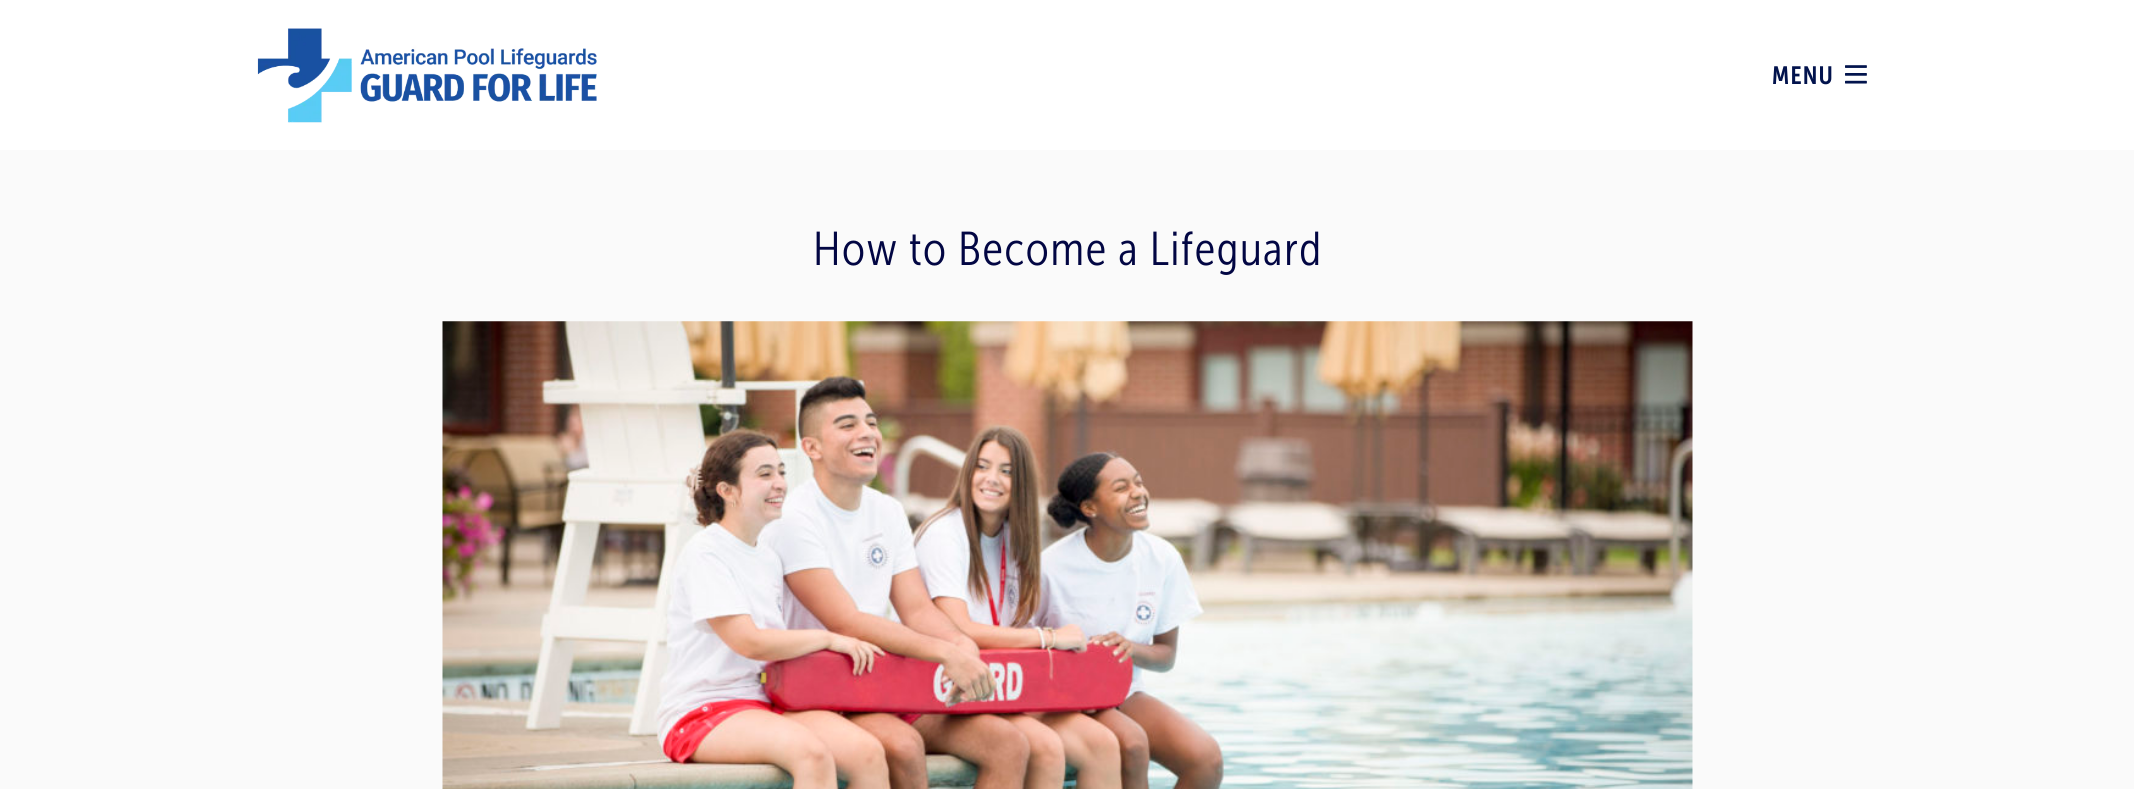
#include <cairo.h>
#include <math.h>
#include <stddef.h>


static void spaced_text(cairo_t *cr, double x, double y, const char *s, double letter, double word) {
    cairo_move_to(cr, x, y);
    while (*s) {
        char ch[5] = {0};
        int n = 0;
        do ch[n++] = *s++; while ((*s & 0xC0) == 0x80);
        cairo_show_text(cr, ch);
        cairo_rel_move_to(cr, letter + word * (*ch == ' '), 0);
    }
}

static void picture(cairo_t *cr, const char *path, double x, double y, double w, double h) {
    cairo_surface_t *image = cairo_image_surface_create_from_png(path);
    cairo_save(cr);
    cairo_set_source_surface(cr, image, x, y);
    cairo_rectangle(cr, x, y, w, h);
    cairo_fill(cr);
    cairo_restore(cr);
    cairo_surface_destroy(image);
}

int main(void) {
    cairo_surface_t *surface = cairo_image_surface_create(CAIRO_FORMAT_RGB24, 2134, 789);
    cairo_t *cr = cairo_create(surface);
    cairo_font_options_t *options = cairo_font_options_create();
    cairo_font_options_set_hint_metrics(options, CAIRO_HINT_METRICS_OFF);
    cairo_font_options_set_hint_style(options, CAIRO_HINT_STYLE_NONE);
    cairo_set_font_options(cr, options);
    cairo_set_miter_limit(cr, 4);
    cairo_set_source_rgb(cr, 0.98, 0.98, 0.98);
    cairo_paint(cr);
    cairo_set_source_rgb(cr, 1, 1, 1);
    cairo_rectangle(cr, 0, 0, 2134, 150);
    cairo_fill(cr);
    picture(cr, "img1.png", 257, 28, 340, 95);
    cairo_select_font_face(cr, "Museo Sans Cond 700 SemiBold", CAIRO_FONT_SLANT_NORMAL, CAIRO_FONT_WEIGHT_NORMAL);
    cairo_set_font_size(cr, 25);
    cairo_set_source_rgb(cr, 0.008, 0.078, 0.302);
    spaced_text(cr, 1772, 84, "MENU", 1.25, 0);
    picture(cr, "img2.png", 1845, 65, 22, 19);
    cairo_select_font_face(cr, "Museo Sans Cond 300 Light", CAIRO_FONT_SLANT_NORMAL, CAIRO_FONT_WEIGHT_NORMAL);
    cairo_set_font_size(cr, 47.5);
    cairo_set_source_rgb(cr, 0.008, 0.024, 0.263);
    spaced_text(cr, 813, 265, "How to Become a Lifeguard", 1.25, 0);
    picture(cr, "img3.png", 442, 321, 1251, 468);
    cairo_surface_write_to_png(surface, "page.png");
    cairo_font_options_destroy(options);
    cairo_destroy(cr);
    cairo_surface_destroy(surface);
    return 0;
}
